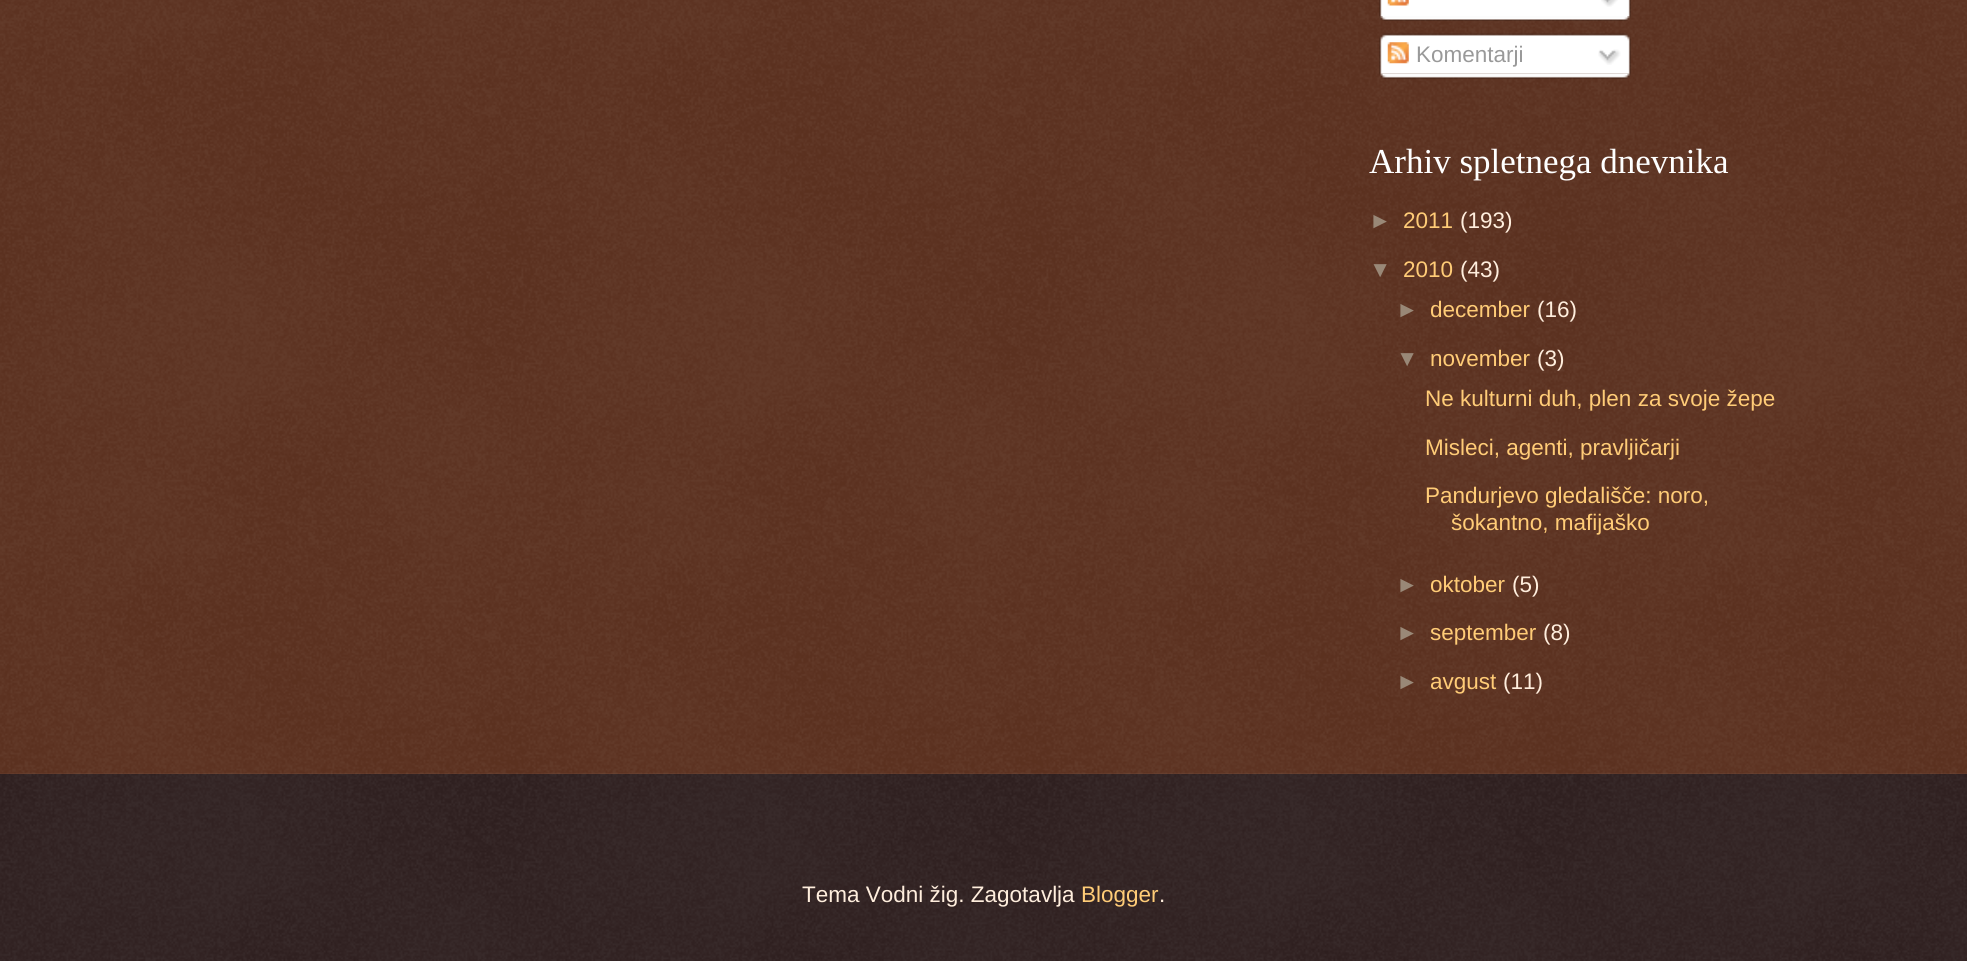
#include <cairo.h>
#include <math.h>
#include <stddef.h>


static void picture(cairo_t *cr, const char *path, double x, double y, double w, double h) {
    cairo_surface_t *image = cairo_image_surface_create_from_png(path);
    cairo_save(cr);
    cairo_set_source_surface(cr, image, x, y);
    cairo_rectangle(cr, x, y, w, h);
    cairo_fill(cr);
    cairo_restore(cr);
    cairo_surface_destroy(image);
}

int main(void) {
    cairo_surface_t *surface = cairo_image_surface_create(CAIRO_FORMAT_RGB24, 1967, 961);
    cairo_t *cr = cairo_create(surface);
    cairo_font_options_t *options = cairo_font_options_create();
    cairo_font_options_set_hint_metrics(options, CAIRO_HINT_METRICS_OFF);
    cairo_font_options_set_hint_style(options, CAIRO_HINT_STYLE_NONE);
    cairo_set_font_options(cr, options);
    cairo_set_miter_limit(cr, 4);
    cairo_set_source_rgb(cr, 0.267, 0.082, 0);
    cairo_paint(cr);
    picture(cr, "img1.png", 0, 0, 1967, 774);
    picture(cr, "img2.png", 1379, 0, 252, 16);
    picture(cr, "img3.png", 1387, 0, 22, 6);
    picture(cr, "img4.png", 1601, 0, 17, 7);
    picture(cr, "img5.png", 1379, 16, 252, 5);
    picture(cr, "img6.png", 1379, 33, 252, 41);
    picture(cr, "img7.png", 1387, 42, 22, 22);
    cairo_select_font_face(cr, "Liberation Sans", CAIRO_FONT_SLANT_NORMAL, CAIRO_FONT_WEIGHT_NORMAL);
    cairo_set_font_size(cr, 22.5);
    cairo_set_source_rgb(cr, 0.6, 0.6, 0.6);
    cairo_move_to(cr, 1416, 62);
    cairo_show_text(cr, "Komentarji");
    picture(cr, "img8.png", 1598, 49, 23, 16);
    picture(cr, "img9.png", 1379, 73, 252, 6);
    cairo_select_font_face(cr, "Liberation Serif", CAIRO_FONT_SLANT_NORMAL, CAIRO_FONT_WEIGHT_NORMAL);
    cairo_set_font_size(cr, 35);
    cairo_set_source_rgb(cr, 1, 1, 1);
    cairo_move_to(cr, 1369, 173);
    cairo_show_text(cr, "Arhiv spletnega dnevnika");
    cairo_select_font_face(cr, "Liberation Sans", CAIRO_FONT_SLANT_NORMAL, CAIRO_FONT_WEIGHT_NORMAL);
    cairo_set_font_size(cr, 22.5);
    cairo_set_source_rgb(cr, 0.6, 0.533, 0.467);
    cairo_move_to(cr, 1369, 228);
    cairo_show_text(cr, "►");
    cairo_set_source_rgb(cr, 1, 0.8, 0.467);
    cairo_move_to(cr, 1403, 228);
    cairo_show_text(cr, "2011");
    cairo_set_source_rgb(cr, 1, 0.933, 0.867);
    cairo_move_to(cr, 1460, 228);
    cairo_show_text(cr, "(193)");
    cairo_set_source_rgb(cr, 0.6, 0.533, 0.467);
    cairo_move_to(cr, 1369, 277);
    cairo_show_text(cr, "▼");
    cairo_set_source_rgb(cr, 1, 0.8, 0.467);
    cairo_move_to(cr, 1403, 277);
    cairo_show_text(cr, "2010");
    cairo_set_source_rgb(cr, 1, 0.933, 0.867);
    cairo_move_to(cr, 1460, 277);
    cairo_show_text(cr, "(43)");
    cairo_set_source_rgb(cr, 0.6, 0.533, 0.467);
    cairo_move_to(cr, 1396, 317);
    cairo_show_text(cr, "►");
    cairo_set_source_rgb(cr, 1, 0.8, 0.467);
    cairo_move_to(cr, 1430, 317);
    cairo_show_text(cr, "december");
    cairo_set_source_rgb(cr, 1, 0.933, 0.867);
    cairo_move_to(cr, 1537, 317);
    cairo_show_text(cr, "(16)");
    cairo_set_source_rgb(cr, 0.6, 0.533, 0.467);
    cairo_move_to(cr, 1396, 366);
    cairo_show_text(cr, "▼");
    cairo_set_source_rgb(cr, 1, 0.8, 0.467);
    cairo_move_to(cr, 1430, 366);
    cairo_show_text(cr, "november");
    cairo_set_source_rgb(cr, 1, 0.933, 0.867);
    cairo_move_to(cr, 1537, 366);
    cairo_show_text(cr, "(3)");
    cairo_set_source_rgb(cr, 1, 0.8, 0.467);
    cairo_move_to(cr, 1425, 406);
    cairo_show_text(cr, "Ne kulturni duh, plen za svoje žepe");
    cairo_move_to(cr, 1425, 455);
    cairo_show_text(cr, "Misleci, agenti, pravljičarji");
    cairo_move_to(cr, 1425, 503);
    cairo_show_text(cr, "Pandurjevo gledališče: noro,");
    cairo_move_to(cr, 1451, 530);
    cairo_show_text(cr, "šokantno, mafijaško");
    cairo_set_source_rgb(cr, 0.6, 0.533, 0.467);
    cairo_move_to(cr, 1396, 592);
    cairo_show_text(cr, "►");
    cairo_set_source_rgb(cr, 1, 0.8, 0.467);
    cairo_move_to(cr, 1430, 592);
    cairo_show_text(cr, "oktober");
    cairo_set_source_rgb(cr, 1, 0.933, 0.867);
    cairo_move_to(cr, 1512, 592);
    cairo_show_text(cr, "(5)");
    cairo_set_source_rgb(cr, 0.6, 0.533, 0.467);
    cairo_move_to(cr, 1396, 640);
    cairo_show_text(cr, "►");
    cairo_set_source_rgb(cr, 1, 0.8, 0.467);
    cairo_move_to(cr, 1430, 640);
    cairo_show_text(cr, "september");
    cairo_set_source_rgb(cr, 1, 0.933, 0.867);
    cairo_move_to(cr, 1543, 640);
    cairo_show_text(cr, "(8)");
    cairo_set_source_rgb(cr, 0.6, 0.533, 0.467);
    cairo_move_to(cr, 1396, 689);
    cairo_show_text(cr, "►");
    cairo_set_source_rgb(cr, 1, 0.8, 0.467);
    cairo_move_to(cr, 1430, 689);
    cairo_show_text(cr, "avgust");
    cairo_set_source_rgb(cr, 1, 0.933, 0.867);
    cairo_move_to(cr, 1503, 689);
    cairo_show_text(cr, "(11)");
    cairo_set_source_rgb(cr, 0.067, 0, 0);
    cairo_rectangle(cr, 0, 774, 1967, 187);
    cairo_fill(cr);
    picture(cr, "img10.png", 0, 773, 1967, 188);
    cairo_set_source_rgb(cr, 1, 0.933, 0.867);
    cairo_move_to(cr, 802, 902);
    cairo_show_text(cr, "Tema Vodni žig. Zagotavlja");
    cairo_set_source_rgb(cr, 1, 0.8, 0.467);
    cairo_move_to(cr, 1081, 902);
    cairo_show_text(cr, "Blogger");
    cairo_set_source_rgb(cr, 1, 0.933, 0.867);
    cairo_move_to(cr, 1159, 902);
    cairo_show_text(cr, ".");
    cairo_surface_write_to_png(surface, "page.png");
    cairo_font_options_destroy(options);
    cairo_destroy(cr);
    cairo_surface_destroy(surface);
    return 0;
}
